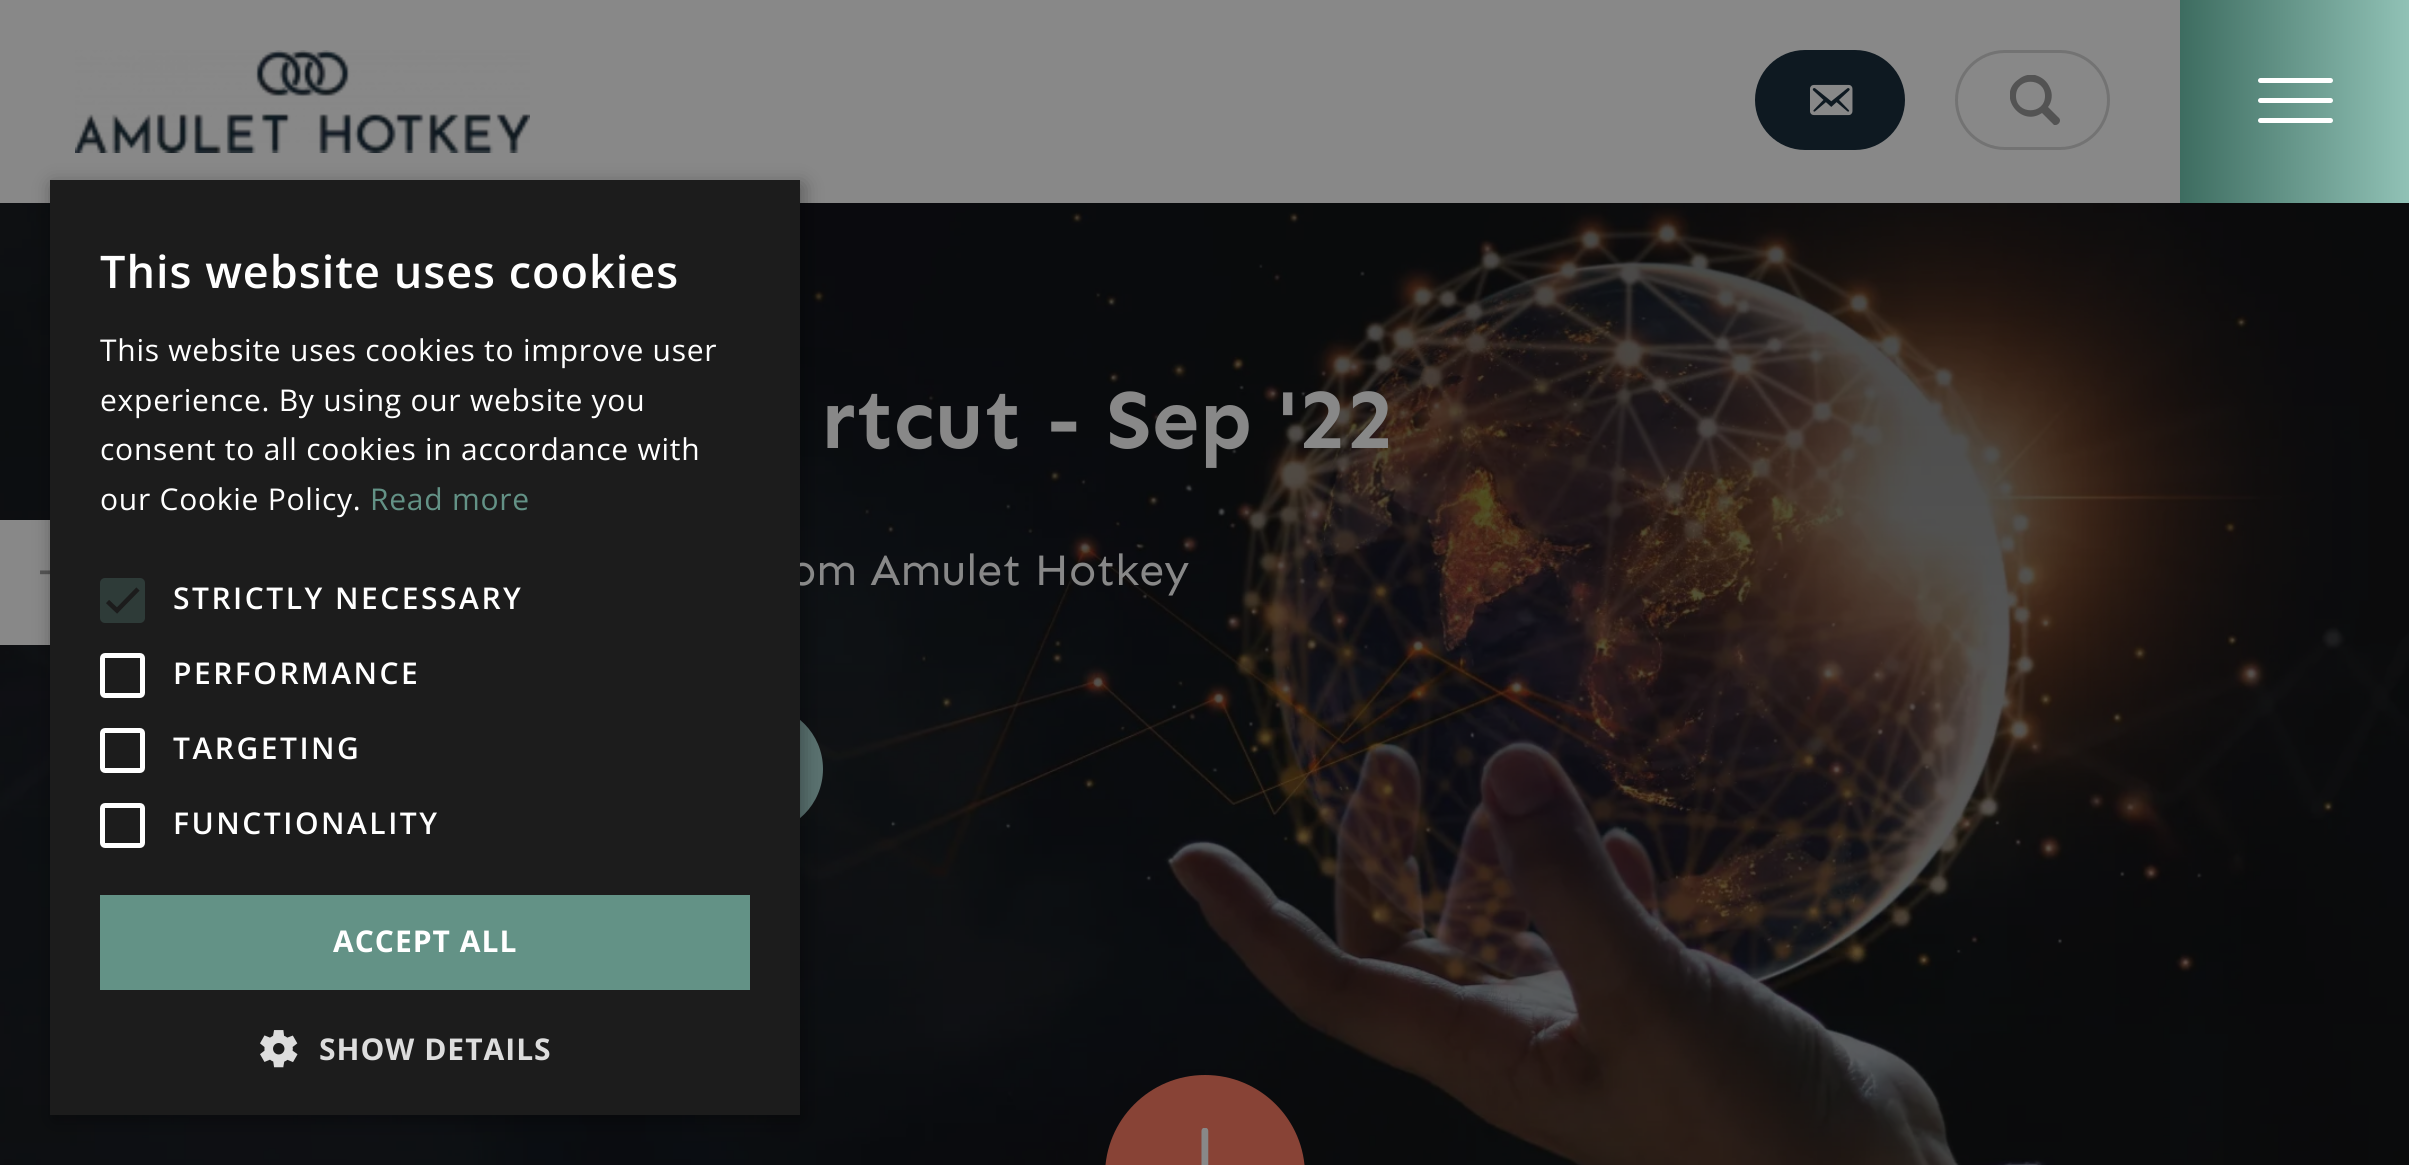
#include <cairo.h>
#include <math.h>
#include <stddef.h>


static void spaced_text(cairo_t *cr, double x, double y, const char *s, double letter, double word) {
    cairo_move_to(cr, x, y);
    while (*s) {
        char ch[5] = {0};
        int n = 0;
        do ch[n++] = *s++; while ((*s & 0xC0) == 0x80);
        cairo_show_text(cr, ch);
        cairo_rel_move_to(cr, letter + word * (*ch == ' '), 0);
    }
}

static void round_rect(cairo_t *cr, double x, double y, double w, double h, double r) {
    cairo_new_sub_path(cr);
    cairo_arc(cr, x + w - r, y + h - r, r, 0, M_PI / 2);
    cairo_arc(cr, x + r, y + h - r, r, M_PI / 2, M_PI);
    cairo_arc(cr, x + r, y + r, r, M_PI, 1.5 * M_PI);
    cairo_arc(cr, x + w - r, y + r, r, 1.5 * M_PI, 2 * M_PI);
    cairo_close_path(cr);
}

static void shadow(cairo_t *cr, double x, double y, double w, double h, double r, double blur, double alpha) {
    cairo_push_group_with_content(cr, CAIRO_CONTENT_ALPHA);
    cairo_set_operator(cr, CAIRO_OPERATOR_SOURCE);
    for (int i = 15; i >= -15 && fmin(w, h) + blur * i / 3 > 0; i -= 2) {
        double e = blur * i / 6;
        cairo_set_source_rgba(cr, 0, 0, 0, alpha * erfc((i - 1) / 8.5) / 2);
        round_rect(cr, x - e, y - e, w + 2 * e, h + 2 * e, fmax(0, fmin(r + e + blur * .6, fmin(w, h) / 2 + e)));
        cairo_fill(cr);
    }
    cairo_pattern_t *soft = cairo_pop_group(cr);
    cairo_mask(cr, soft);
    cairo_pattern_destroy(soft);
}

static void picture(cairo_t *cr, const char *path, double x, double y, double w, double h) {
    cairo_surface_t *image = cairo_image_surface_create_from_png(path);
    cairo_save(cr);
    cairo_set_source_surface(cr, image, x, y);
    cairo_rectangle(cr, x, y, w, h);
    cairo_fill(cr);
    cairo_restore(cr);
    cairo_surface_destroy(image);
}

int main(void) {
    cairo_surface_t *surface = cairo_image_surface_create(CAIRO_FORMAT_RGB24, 2409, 1165);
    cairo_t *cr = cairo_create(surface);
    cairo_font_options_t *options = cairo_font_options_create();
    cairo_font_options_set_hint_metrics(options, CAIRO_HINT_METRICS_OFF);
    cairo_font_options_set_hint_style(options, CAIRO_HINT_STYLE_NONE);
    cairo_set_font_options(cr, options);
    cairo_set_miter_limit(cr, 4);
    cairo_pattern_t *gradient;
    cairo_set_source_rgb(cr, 1, 1, 1);
    cairo_paint(cr);
    cairo_set_source_rgb(cr, 0.533, 0.533, 0.533);
    cairo_rectangle(cr, 0, 0, 2180, 203);
    cairo_fill(cr);
    picture(cr, "img1.png", 75, 50, 455, 103);
    cairo_set_source_rgb(cr, 0.055, 0.098, 0.129);
    round_rect(cr, 1755, 50, 150, 100, 50);
    cairo_fill(cr);
    picture(cr, "img2.png", 1810, 84, 43, 32);
    round_rect(cr, 1956.5, 51.5, 152, 97, 48.5);
    cairo_set_source_rgb(cr, 0.451, 0.451, 0.451);
    cairo_set_line_width(cr, 3);
    cairo_stroke(cr);
    cairo_save(cr);
    cairo_rectangle(cr, 2010, 75, 50, 50);
    cairo_clip(cr);
    cairo_set_source_rgb(cr, 0.325, 0.325, 0.325);
    cairo_new_path(cr);
    cairo_move_to(cr, 2059, 118);
    cairo_line_to(cr, 2048, 107);
    cairo_curve_to(cr, 2052, 102, 2053, 94, 2050, 88);
    cairo_curve_to(cr, 2047, 81, 2042, 77, 2035, 75);
    cairo_curve_to(cr, 2030, 74, 2024, 75, 2019, 79);
    cairo_curve_to(cr, 1996, 94, 2020, 128, 2042, 113);
    cairo_line_to(cr, 2054, 125);
    cairo_curve_to(cr, 2058, 126, 2062, 121, 2059, 118);
    cairo_close_path(cr);
    cairo_move_to(cr, 2016, 96);
    cairo_curve_to(cr, 2016, 77, 2045, 77, 2045, 96);
    cairo_curve_to(cr, 2045, 115, 2016, 115, 2016, 96);
    cairo_close_path(cr);
    cairo_fill(cr);
    cairo_restore(cr);
    gradient = cairo_pattern_create_linear(2180, 101, 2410, 101);
    cairo_pattern_add_color_stop_rgba(gradient, 0, 0.239, 0.424, 0.376, 1);
    cairo_pattern_add_color_stop_rgba(gradient, 1, 0.569, 0.761, 0.714, 1);
    cairo_set_source(cr, gradient);
    cairo_pattern_destroy(gradient);
    cairo_rectangle(cr, 2180, 0, 229, 203);
    cairo_fill(cr);
    cairo_set_source_rgb(cr, 1, 1, 1);
    round_rect(cr, 2258, 78, 75, 5, 2.5);
    cairo_fill(cr);
    round_rect(cr, 2258, 98, 75, 5, 2.5);
    cairo_fill(cr);
    round_rect(cr, 2258, 118, 75, 5, 2.5);
    cairo_fill(cr);
    picture(cr, "img5.png", 0, 203, 2409, 962);
    cairo_set_source_rgb(cr, 0.533, 0.533, 0.533);
    cairo_rectangle(cr, 0, 520, 50, 125);
    cairo_fill(cr);
    picture(cr, "img3.png", 40, 570, 10, 5);
    cairo_set_source_rgb(cr, 0.357, 0.451, 0.443);
    round_rect(cr, 75, 705, 748, 128, 64);
    cairo_fill(cr);
    cairo_set_source_rgb(cr, 0, 0, 0);
    shadow(cr, 53, 185, 750, 935, 0, 10, 0.35);
    cairo_select_font_face(cr, "Sen", CAIRO_FONT_SLANT_NORMAL, CAIRO_FONT_WEIGHT_NORMAL);
    cairo_set_font_size(cr, 45);
    cairo_set_source_rgb(cr, 0.533, 0.533, 0.533);
    cairo_move_to(cr, 789, 585);
    cairo_show_text(cr, "om Amulet Hotkey");
    cairo_set_source_rgb(cr, 0.11, 0.11, 0.11);
    cairo_rectangle(cr, 50, 180, 750, 935);
    cairo_fill(cr);
    cairo_select_font_face(cr, "Open Sans SemiBold", CAIRO_FONT_SLANT_NORMAL, CAIRO_FONT_WEIGHT_NORMAL);
    cairo_set_source_rgb(cr, 1, 1, 1);
    spaced_text(cr, 100, 288, "This website uses cookies", 1, 0);
    cairo_select_font_face(cr, "Open Sans", CAIRO_FONT_SLANT_NORMAL, CAIRO_FONT_WEIGHT_NORMAL);
    cairo_set_font_size(cr, 30);
    spaced_text(cr, 100, 361, "This website uses cookies to improve user", 0.75, 0);
    spaced_text(cr, 100, 411, "experience. By using our website you", 0.75, 0);
    spaced_text(cr, 100, 460, "consent to all cookies in accordance with", 0.75, 0);
    spaced_text(cr, 100, 510, "our Cookie Policy.", 0.75, 0);
    cairo_set_source_rgb(cr, 0.388, 0.573, 0.525);
    spaced_text(cr, 370, 510, "Read more", 0.75, 0);
    cairo_set_source_rgb(cr, 0.18, 0.231, 0.22);
    round_rect(cr, 100, 578, 45, 45, 5);
    cairo_fill(cr);
    cairo_new_path(cr);
    cairo_move_to(cr, 107.5, 601.5);
    cairo_line_to(cr, 117, 610.5);
    cairo_line_to(cr, 138, 589);
    cairo_set_source_rgb(cr, 0.11, 0.11, 0.11);
    cairo_set_line_width(cr, 4.6);
    cairo_stroke(cr);
    cairo_select_font_face(cr, "Open Sans SemiBold", CAIRO_FONT_SLANT_NORMAL, CAIRO_FONT_WEIGHT_NORMAL);
    cairo_set_source_rgb(cr, 1, 1, 1);
    spaced_text(cr, 173, 609, "STRICTLY NECESSARY", 2.5, 0);
    round_rect(cr, 102.5, 655.5, 40, 40, 2.5);
    cairo_set_line_width(cr, 5);
    cairo_stroke(cr);
    spaced_text(cr, 173, 684, "PERFORMANCE", 2.5, 0);
    round_rect(cr, 102.5, 730.5, 40, 40, 2.5);
    cairo_stroke(cr);
    spaced_text(cr, 173, 759, "TARGETING", 2.5, 0);
    round_rect(cr, 102.5, 805.5, 40, 40, 2.5);
    cairo_stroke(cr);
    spaced_text(cr, 173, 834, "FUNCTIONALITY", 2.5, 0);
    cairo_set_source_rgb(cr, 0.388, 0.573, 0.525);
    cairo_rectangle(cr, 100, 895, 650, 95);
    cairo_fill(cr);
    cairo_select_font_face(cr, "Open Sans", CAIRO_FONT_SLANT_NORMAL, CAIRO_FONT_WEIGHT_BOLD);
    cairo_set_source_rgb(cr, 1, 1, 1);
    spaced_text(cr, 333, 952, "ACCEPT ALL", 1, 0);
    picture(cr, "img4.png", 260, 1030, 38, 38);
    cairo_set_source_rgb(cr, 0.867, 0.867, 0.867);
    spaced_text(cr, 319, 1060, "SHOW DETAILS", 1, 0);
    cairo_select_font_face(cr, "Sen", CAIRO_FONT_SLANT_NORMAL, CAIRO_FONT_WEIGHT_BOLD);
    cairo_set_font_size(cr, 85);
    cairo_set_source_rgb(cr, 0.533, 0.533, 0.533);
    cairo_move_to(cr, 821, 448);
    cairo_show_text(cr, "rtcut - Sep '22");
    cairo_set_source_rgb(cr, 0.533, 0.263, 0.212);
    round_rect(cr, 1105, 1075, 200, 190, 100);
    cairo_fill(cr);
    picture(cr, "img6.png", 1201, 1128, 8, 37);
    cairo_surface_write_to_png(surface, "page.png");
    cairo_font_options_destroy(options);
    cairo_destroy(cr);
    cairo_surface_destroy(surface);
    return 0;
}
